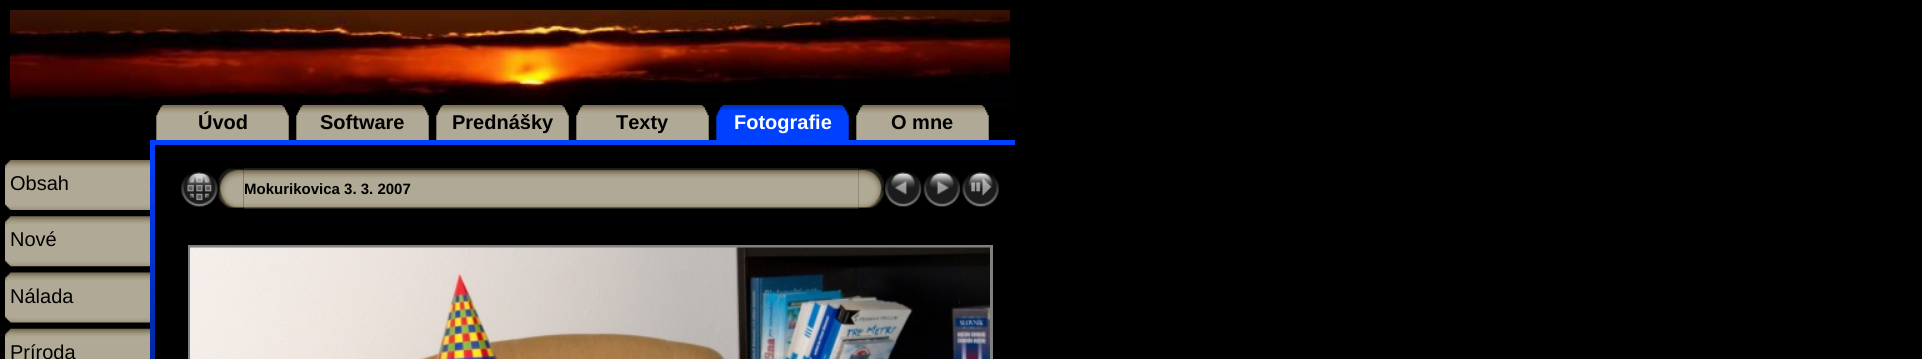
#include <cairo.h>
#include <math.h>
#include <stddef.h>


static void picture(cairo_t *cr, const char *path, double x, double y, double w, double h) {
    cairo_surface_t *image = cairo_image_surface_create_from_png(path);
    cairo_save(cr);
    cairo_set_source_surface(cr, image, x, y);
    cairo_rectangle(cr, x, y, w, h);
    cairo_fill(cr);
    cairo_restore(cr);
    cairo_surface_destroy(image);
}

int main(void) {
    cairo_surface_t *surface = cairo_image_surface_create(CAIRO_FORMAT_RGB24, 1922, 359);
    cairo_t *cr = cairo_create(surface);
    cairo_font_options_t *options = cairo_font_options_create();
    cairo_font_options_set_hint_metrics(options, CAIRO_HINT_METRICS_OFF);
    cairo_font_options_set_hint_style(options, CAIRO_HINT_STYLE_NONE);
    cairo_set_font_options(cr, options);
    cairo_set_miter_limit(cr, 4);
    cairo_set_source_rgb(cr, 0, 0, 0);
    cairo_paint(cr);
    picture(cr, "img1.png", 10, 10, 1000, 95);
    picture(cr, "img2.png", 156, 105, 133, 35);
    cairo_select_font_face(cr, "Liberation Sans", CAIRO_FONT_SLANT_NORMAL, CAIRO_FONT_WEIGHT_BOLD);
    cairo_set_font_size(cr, 20);
    cairo_set_source_rgb(cr, 0, 0, 0);
    cairo_move_to(cr, 198, 129);
    cairo_show_text(cr, "Úvod");
    picture(cr, "img2.png", 296, 105, 133, 35);
    cairo_move_to(cr, 320, 129);
    cairo_show_text(cr, "Software");
    picture(cr, "img3.png", 436, 105, 133, 35);
    cairo_move_to(cr, 452, 129);
    cairo_show_text(cr, "Prednášky");
    picture(cr, "img3.png", 576, 105, 133, 35);
    cairo_move_to(cr, 616, 129);
    cairo_show_text(cr, "Texty");
    picture(cr, "img4.png", 716, 105, 133, 35);
    cairo_set_source_rgb(cr, 1, 1, 1);
    cairo_move_to(cr, 734, 129);
    cairo_show_text(cr, "Fotografie");
    picture(cr, "img2.png", 856, 105, 133, 35);
    cairo_set_source_rgb(cr, 0, 0, 0);
    cairo_move_to(cr, 891, 129);
    cairo_show_text(cr, "O mne");
    cairo_set_source_rgb(cr, 0, 0.251, 1);
    cairo_rectangle(cr, 155, 140, 860, 5);
    cairo_fill(cr);
    picture(cr, "img5.png", 5, 160, 145, 50);
    cairo_select_font_face(cr, "Liberation Sans", CAIRO_FONT_SLANT_NORMAL, CAIRO_FONT_WEIGHT_NORMAL);
    cairo_set_source_rgb(cr, 0, 0, 0);
    cairo_move_to(cr, 10, 190);
    cairo_show_text(cr, "Obsah");
    picture(cr, "img6.png", 150, 140, 5, 219);
    picture(cr, "img7.png", 5, 216, 145, 51);
    cairo_move_to(cr, 10, 246);
    cairo_show_text(cr, "Nové");
    picture(cr, "img8.png", 5, 272, 145, 51);
    cairo_move_to(cr, 10, 303);
    cairo_show_text(cr, "Nálada");
    picture(cr, "img9.png", 5, 328, 145, 31);
    cairo_move_to(cr, 10, 359);
    cairo_show_text(cr, "Príroda");
    picture(cr, "img10.png", 181, 172, 37, 35);
    picture(cr, "img12.png", 243, 168, 616, 41);
    cairo_rectangle(cr, 243, 169, 1, 39);
    cairo_fill(cr);
    picture(cr, "img11.png", 218, 168, 26, 40);
    cairo_select_font_face(cr, "Liberation Sans", CAIRO_FONT_SLANT_NORMAL, CAIRO_FONT_WEIGHT_BOLD);
    cairo_set_font_size(cr, 15);
    cairo_move_to(cr, 244, 194);
    cairo_show_text(cr, "Mokurikovica 3. 3. 2007");
    picture(cr, "img13.png", 858, 168, 26, 40);
    picture(cr, "img14.png", 885, 172, 37, 35);
    picture(cr, "img15.png", 923, 172, 38, 35);
    picture(cr, "img16.png", 962, 172, 37, 35);
    cairo_rectangle(cr, 189.5, 246.5, 802, 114);
    cairo_set_source_rgb(cr, 0.502, 0.502, 0.502);
    cairo_set_line_width(cr, 3);
    cairo_stroke(cr);
    picture(cr, "img17.png", 190, 247, 800, 112);
    cairo_surface_write_to_png(surface, "page.png");
    cairo_font_options_destroy(options);
    cairo_destroy(cr);
    cairo_surface_destroy(surface);
    return 0;
}
